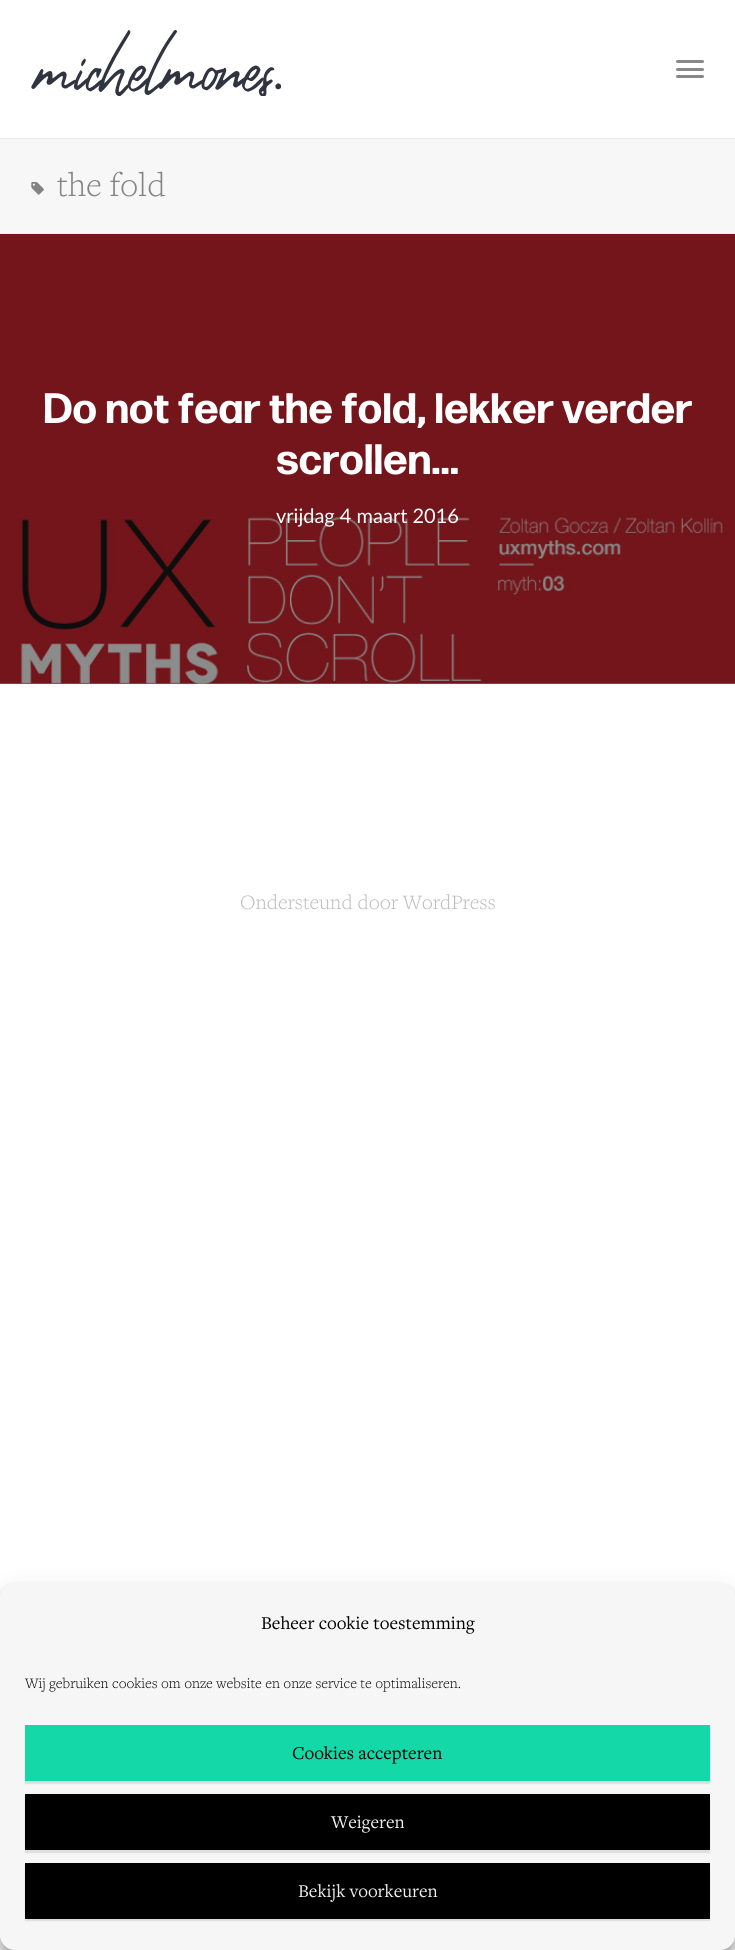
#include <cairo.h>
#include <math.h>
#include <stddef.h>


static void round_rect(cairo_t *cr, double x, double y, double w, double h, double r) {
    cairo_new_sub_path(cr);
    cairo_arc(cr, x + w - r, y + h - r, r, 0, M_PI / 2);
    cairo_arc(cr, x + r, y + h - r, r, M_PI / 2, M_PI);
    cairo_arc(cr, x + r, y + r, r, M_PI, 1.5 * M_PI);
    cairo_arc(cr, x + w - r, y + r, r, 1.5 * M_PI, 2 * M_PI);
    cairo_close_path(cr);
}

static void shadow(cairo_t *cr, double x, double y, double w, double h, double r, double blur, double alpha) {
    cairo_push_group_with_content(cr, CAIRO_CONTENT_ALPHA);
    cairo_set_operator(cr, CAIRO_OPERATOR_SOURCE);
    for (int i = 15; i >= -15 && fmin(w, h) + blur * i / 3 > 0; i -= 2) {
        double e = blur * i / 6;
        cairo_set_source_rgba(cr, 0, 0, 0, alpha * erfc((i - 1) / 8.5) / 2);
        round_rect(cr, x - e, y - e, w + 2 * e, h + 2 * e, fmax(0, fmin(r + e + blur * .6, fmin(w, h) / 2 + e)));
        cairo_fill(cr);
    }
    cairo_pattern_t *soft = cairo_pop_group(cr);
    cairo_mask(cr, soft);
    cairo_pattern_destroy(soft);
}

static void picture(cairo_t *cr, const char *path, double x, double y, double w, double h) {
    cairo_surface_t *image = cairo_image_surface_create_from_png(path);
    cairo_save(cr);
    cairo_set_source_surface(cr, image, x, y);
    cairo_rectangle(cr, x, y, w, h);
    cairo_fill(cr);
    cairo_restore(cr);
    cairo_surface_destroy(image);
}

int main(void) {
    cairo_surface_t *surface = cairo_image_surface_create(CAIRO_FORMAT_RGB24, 735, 1950);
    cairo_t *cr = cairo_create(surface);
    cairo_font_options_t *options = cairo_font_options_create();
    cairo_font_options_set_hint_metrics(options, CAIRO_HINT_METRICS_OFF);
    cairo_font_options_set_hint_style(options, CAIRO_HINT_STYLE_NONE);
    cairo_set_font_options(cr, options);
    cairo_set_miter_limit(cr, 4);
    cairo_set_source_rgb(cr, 1, 1, 1);
    cairo_paint(cr);
    cairo_set_source_rgb(cr, 0.918, 0.918, 0.918);
    cairo_rectangle(cr, 0, 138, 735, 1);
    cairo_fill(cr);
    picture(cr, "img1.png", 31, 30, 250, 66);
    cairo_set_source_rgb(cr, 0.533, 0.533, 0.533);
    round_rect(cr, 676, 60, 28, 3, 1.5);
    cairo_fill(cr);
    round_rect(cr, 676, 68, 28, 3, 1.5);
    cairo_fill(cr);
    round_rect(cr, 676, 75, 28, 3, 1.5);
    cairo_fill(cr);
    cairo_set_source_rgb(cr, 0.965, 0.965, 0.965);
    cairo_rectangle(cr, 0, 139, 735, 95);
    cairo_fill(cr);
    picture(cr, "img2.png", 31, 181, 13, 14);
    cairo_select_font_face(cr, "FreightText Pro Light", CAIRO_FONT_SLANT_NORMAL, CAIRO_FONT_WEIGHT_NORMAL);
    cairo_set_font_size(cr, 35);
    cairo_set_source_rgb(cr, 0.518, 0.518, 0.518);
    cairo_move_to(cr, 57, 196);
    cairo_show_text(cr, "the fold");
    cairo_set_source_rgb(cr, 0.529, 0.529, 0.529);
    cairo_rectangle(cr, 0, 683, 735, 1);
    cairo_fill(cr);
    picture(cr, "img3.png", 0, 233, 735, 451);
    cairo_select_font_face(cr, "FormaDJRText", CAIRO_FONT_SLANT_NORMAL, CAIRO_FONT_WEIGHT_BOLD);
    cairo_set_font_size(cr, 42.5);
    cairo_set_source_rgb(cr, 1, 1, 1);
    cairo_move_to(cr, 43, 423);
    cairo_show_text(cr, "Do not fear the fold, lekker verder");
    cairo_move_to(cr, 276, 474);
    cairo_show_text(cr, "scrollen…");
    cairo_select_font_face(cr, "Lato", CAIRO_FONT_SLANT_NORMAL, CAIRO_FONT_WEIGHT_NORMAL);
    cairo_set_font_size(cr, 20);
    cairo_move_to(cr, 276, 523);
    cairo_show_text(cr, "vrijdag 4 maart 2016");
    cairo_select_font_face(cr, "FreightText Pro Light", CAIRO_FONT_SLANT_NORMAL, CAIRO_FONT_WEIGHT_NORMAL);
    cairo_set_font_size(cr, 21.25);
    cairo_set_source_rgb(cr, 0.733, 0.733, 0.733);
    cairo_move_to(cr, 240, 909);
    cairo_show_text(cr, "Ondersteund door WordPress");
    cairo_set_source_rgb(cr, 0, 0, 0);
    shadow(cr, 0, 1590, 735, 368, 15, 4, 0.23);
    shadow(cr, 0, 1595, 735, 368, 15, 12.5, 0.19);
    cairo_set_source_rgb(cr, 0.961, 0.961, 0.961);
    round_rect(cr, 0, 1583, 735, 367, 15);
    cairo_fill(cr);
    cairo_select_font_face(cr, "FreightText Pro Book", CAIRO_FONT_SLANT_NORMAL, CAIRO_FONT_WEIGHT_NORMAL);
    cairo_set_font_size(cr, 18.75);
    cairo_set_source_rgb(cr, 0, 0, 0);
    cairo_move_to(cr, 261, 1629);
    cairo_show_text(cr, "Beheer cookie toestemming");
    cairo_select_font_face(cr, "FreightText Pro Light", CAIRO_FONT_SLANT_NORMAL, CAIRO_FONT_WEIGHT_NORMAL);
    cairo_set_font_size(cr, 15);
    cairo_move_to(cr, 25, 1688);
    cairo_show_text(cr, "Wij gebruiken cookies om onze website en onze service te optimaliseren.");
    cairo_set_source_rgb(cr, 0, 0, 0);
    shadow(cr, 25, 1728, 685, 56, 0, 0.5, 0.1);
    cairo_set_source_rgb(cr, 0.082, 0.847, 0.655);
    cairo_rectangle(cr, 25, 1725, 685, 56);
    cairo_fill(cr);
    cairo_select_font_face(cr, "FreightText Pro Book", CAIRO_FONT_SLANT_NORMAL, CAIRO_FONT_WEIGHT_NORMAL);
    cairo_set_font_size(cr, 18.75);
    cairo_set_source_rgb(cr, 0, 0, 0);
    cairo_move_to(cr, 292, 1759);
    cairo_show_text(cr, "Cookies accepteren");
    cairo_set_source_rgb(cr, 0, 0, 0);
    shadow(cr, 25, 1796, 685, 57, 0, 0.5, 0.1);
    cairo_set_source_rgb(cr, 0, 0, 0);
    cairo_rectangle(cr, 25, 1794, 685, 56);
    cairo_fill(cr);
    cairo_set_source_rgb(cr, 0.937, 0.937, 0.937);
    cairo_move_to(cr, 331, 1828);
    cairo_show_text(cr, "Weigeren");
    cairo_set_source_rgb(cr, 0, 0, 0);
    shadow(cr, 25, 1865, 685, 56, 0, 0.5, 0.1);
    cairo_set_source_rgb(cr, 0, 0, 0);
    cairo_rectangle(cr, 25, 1863, 685, 56);
    cairo_fill(cr);
    cairo_set_source_rgb(cr, 0.937, 0.937, 0.937);
    cairo_move_to(cr, 298, 1897);
    cairo_show_text(cr, "Bekijk voorkeuren");
    cairo_surface_write_to_png(surface, "page.png");
    cairo_font_options_destroy(options);
    cairo_destroy(cr);
    cairo_surface_destroy(surface);
    return 0;
}
